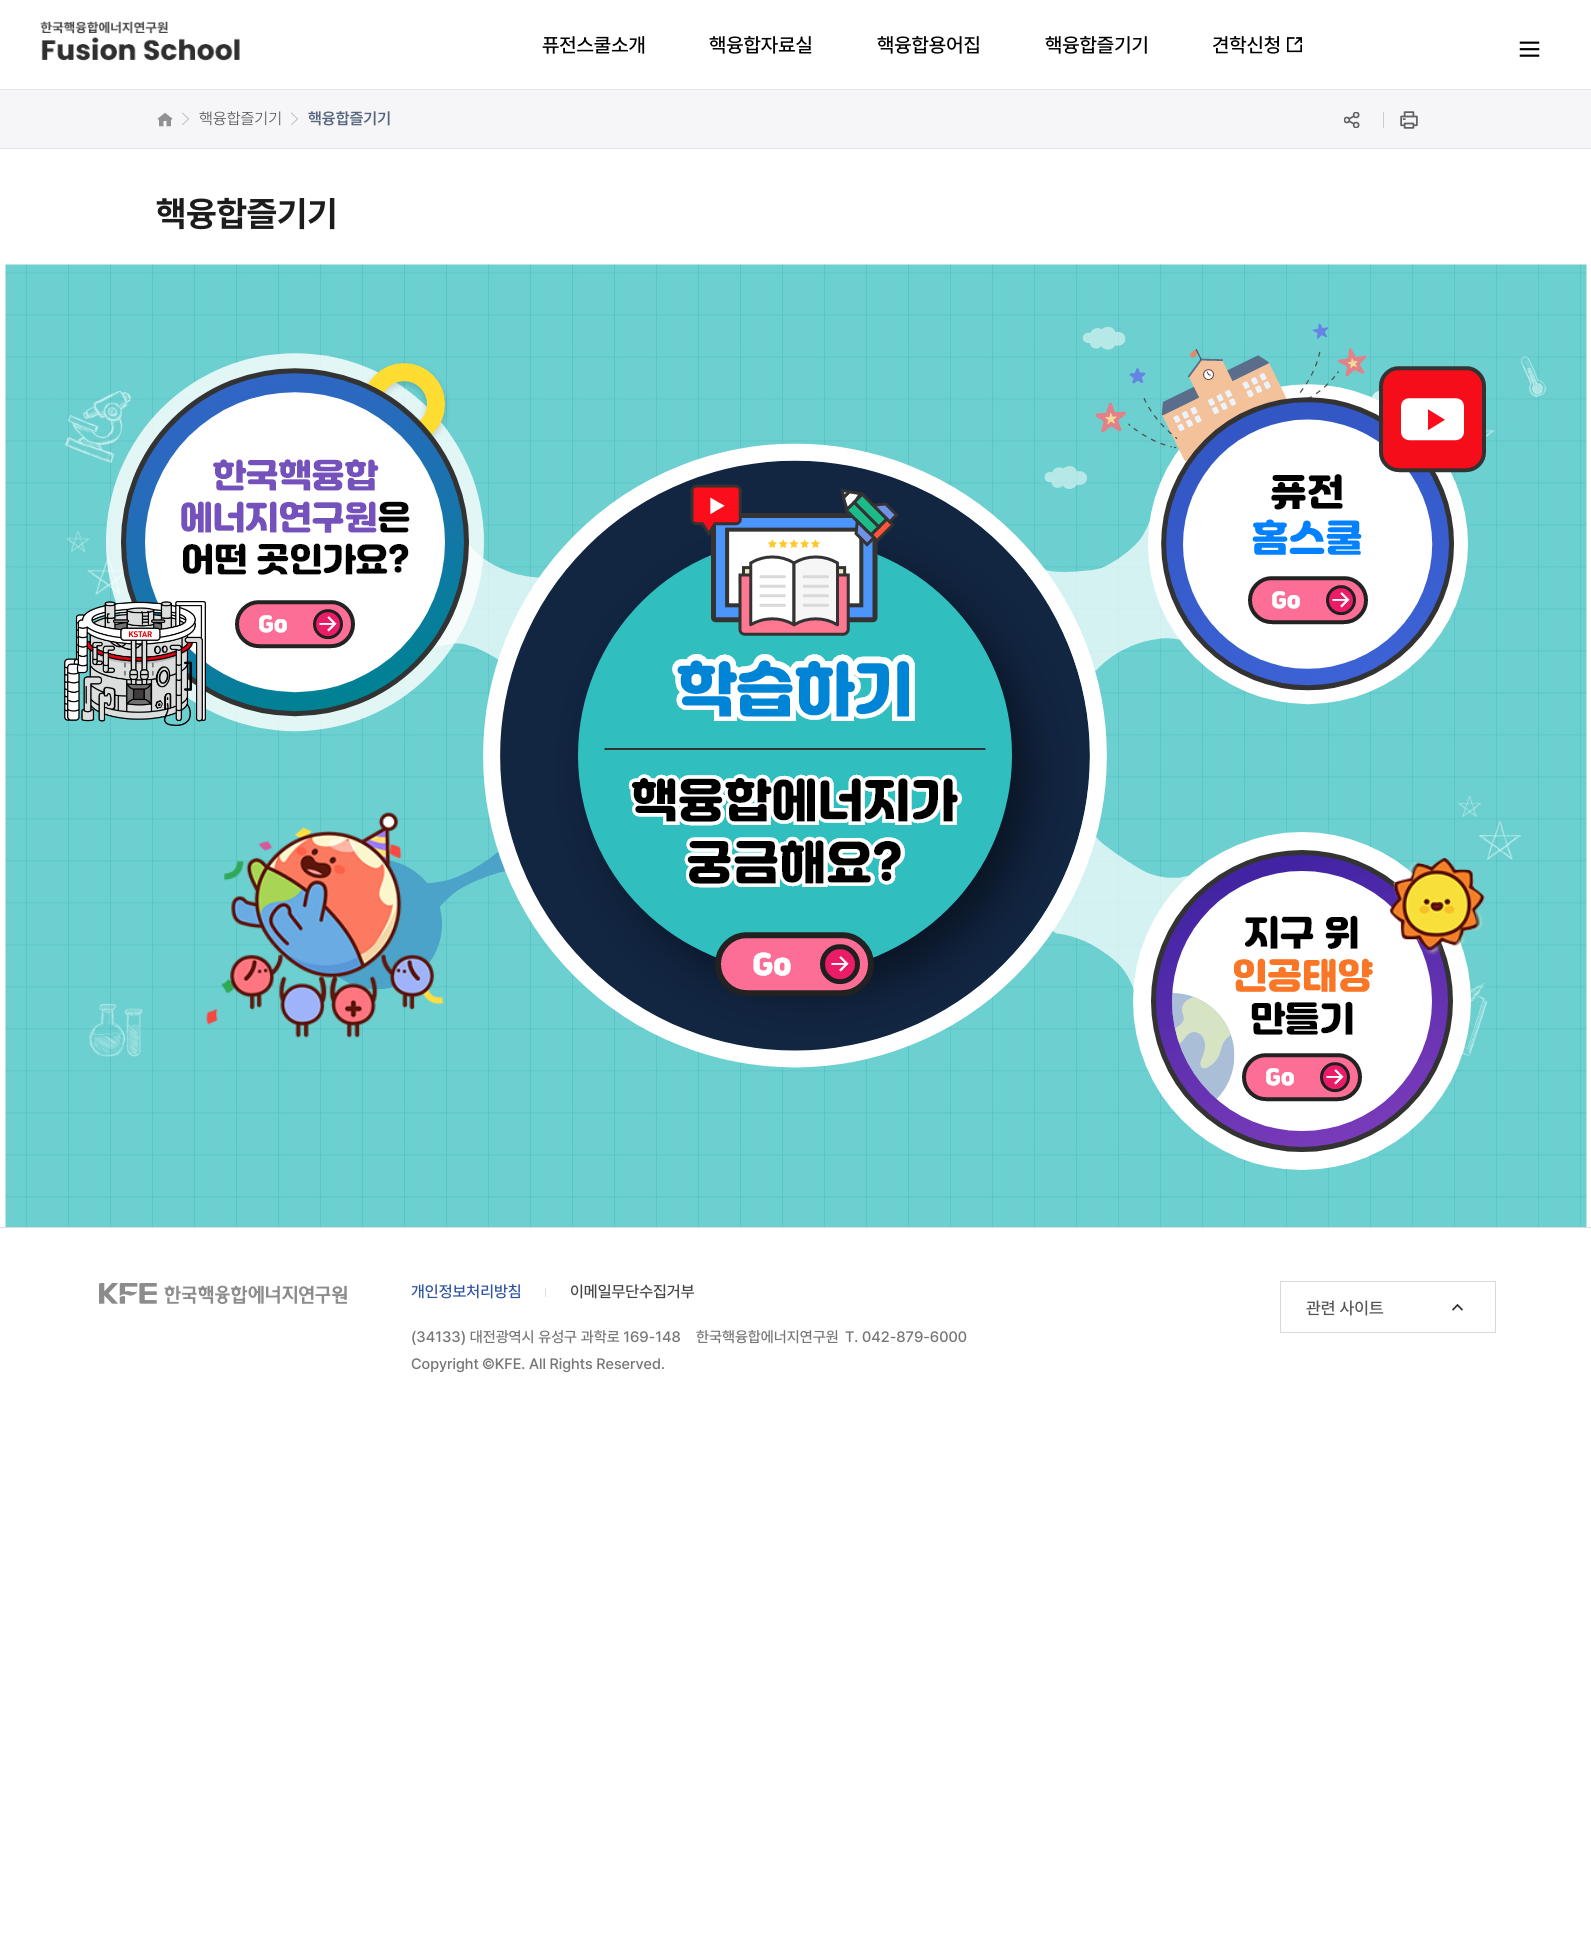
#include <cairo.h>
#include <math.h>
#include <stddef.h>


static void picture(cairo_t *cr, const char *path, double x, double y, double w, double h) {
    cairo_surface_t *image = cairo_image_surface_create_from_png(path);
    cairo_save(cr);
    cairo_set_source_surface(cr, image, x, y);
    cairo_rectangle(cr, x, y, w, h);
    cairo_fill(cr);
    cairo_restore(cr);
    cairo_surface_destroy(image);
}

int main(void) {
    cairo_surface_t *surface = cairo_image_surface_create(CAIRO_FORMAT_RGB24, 1591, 1934);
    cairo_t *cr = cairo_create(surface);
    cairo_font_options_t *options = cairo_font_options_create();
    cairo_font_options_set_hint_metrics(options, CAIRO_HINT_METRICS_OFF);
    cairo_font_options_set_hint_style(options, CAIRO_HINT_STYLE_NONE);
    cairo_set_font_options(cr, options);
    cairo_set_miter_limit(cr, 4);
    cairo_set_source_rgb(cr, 1, 1, 1);
    cairo_paint(cr);
    picture(cr, "img1.png", 40, 21, 200, 40);
    cairo_select_font_face(cr, "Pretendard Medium", CAIRO_FONT_SLANT_NORMAL, CAIRO_FONT_WEIGHT_NORMAL);
    cairo_set_font_size(cr, 20);
    cairo_set_source_rgb(cr, 0, 0, 0);
    cairo_move_to(cr, 542, 52);
    cairo_show_text(cr, "퓨전스쿨소개");
    cairo_move_to(cr, 709, 52);
    cairo_show_text(cr, "핵융합자료실");
    cairo_move_to(cr, 877, 52);
    cairo_show_text(cr, "핵융합용어집");
    cairo_move_to(cr, 1045, 52);
    cairo_show_text(cr, "핵융합즐기기");
    cairo_move_to(cr, 1212, 52);
    cairo_show_text(cr, "견학신청");
    picture(cr, "img2.png", 1287, 37, 15, 16);
    picture(cr, "img3.png", 1519, 41, 21, 16);
    cairo_set_source_rgb(cr, 0.89, 0.902, 0.91);
    cairo_rectangle(cr, 0, 89, 1591, 1);
    cairo_fill(cr);
    cairo_set_source_rgb(cr, 0.961, 0.961, 0.973);
    cairo_rectangle(cr, 0, 90, 1591, 58);
    cairo_fill(cr);
    cairo_set_source_rgb(cr, 0.89, 0.902, 0.91);
    cairo_rectangle(cr, 0, 148, 1591, 1);
    cairo_fill(cr);
    picture(cr, "img4.png", 157, 112, 16, 15);
    picture(cr, "img5.png", 182, 112, 7, 14);
    cairo_select_font_face(cr, "Pretendard Light", CAIRO_FONT_SLANT_NORMAL, CAIRO_FONT_WEIGHT_NORMAL);
    cairo_set_font_size(cr, 16);
    cairo_set_source_rgb(cr, 0.333, 0.333, 0.333);
    cairo_move_to(cr, 199, 124);
    cairo_show_text(cr, "핵융합즐기기");
    picture(cr, "img5.png", 291, 112, 7, 14);
    cairo_select_font_face(cr, "Pretendard SemiBold", CAIRO_FONT_SLANT_NORMAL, CAIRO_FONT_WEIGHT_NORMAL);
    cairo_set_source_rgb(cr, 0.337, 0.396, 0.482);
    cairo_move_to(cr, 308, 124);
    cairo_show_text(cr, "핵융합즐기기");
    picture(cr, "img6.png", 1344, 112, 16, 16);
    cairo_set_source_rgb(cr, 0.8, 0.8, 0.8);
    cairo_rectangle(cr, 1383, 112, 1, 16);
    cairo_fill(cr);
    picture(cr, "img7.png", 1400, 111, 18, 18);
    cairo_select_font_face(cr, "Pretendard", CAIRO_FONT_SLANT_NORMAL, CAIRO_FONT_WEIGHT_BOLD);
    cairo_set_font_size(cr, 35);
    cairo_set_source_rgb(cr, 0.114, 0.11, 0.11);
    cairo_move_to(cr, 156, 226);
    cairo_show_text(cr, "핵융합즐기기");
    picture(cr, "img8.png", 5, 264, 1582, 963);
    picture(cr, "img9.png", 106, 323, 1380, 847);
    picture(cr, "img10.png", 64, 601, 142, 125);
    picture(cr, "img11.png", 206, 812, 238, 226);
    picture(cr, "img12.png", 1389, 858, 96, 97);
    cairo_set_source_rgb(cr, 0.867, 0.867, 0.867);
    cairo_rectangle(cr, 0, 1227, 1591, 1);
    cairo_fill(cr);
    picture(cr, "img13.png", 99, 1283, 248, 21);
    cairo_select_font_face(cr, "Pretendard Medium", CAIRO_FONT_SLANT_NORMAL, CAIRO_FONT_WEIGHT_NORMAL);
    cairo_set_font_size(cr, 16);
    cairo_set_source_rgb(cr, 0.18, 0.325, 0.639);
    cairo_move_to(cr, 411, 1297);
    cairo_show_text(cr, "개인정보처리방침");
    cairo_set_source_rgb(cr, 0.871, 0.871, 0.871);
    cairo_rectangle(cr, 545, 1288, 1, 9);
    cairo_fill(cr);
    cairo_set_source_rgb(cr, 0.267, 0.267, 0.267);
    cairo_move_to(cr, 570, 1297);
    cairo_show_text(cr, "이메일무단수집거부");
    cairo_set_font_size(cr, 15);
    cairo_set_source_rgb(cr, 0.463, 0.463, 0.463);
    cairo_move_to(cr, 411, 1342);
    cairo_show_text(cr, "(34133) 대전광역시 유성구 과학로 169-148");
    cairo_move_to(cr, 696, 1342);
    cairo_show_text(cr, "한국핵융합에너지연구원");
    cairo_move_to(cr, 845, 1342);
    cairo_show_text(cr, "T. 042-879-6000");
    cairo_move_to(cr, 411, 1369);
    cairo_show_text(cr, "Copyright ©KFE. All Rights Reserved.");
    cairo_rectangle(cr, 1280.5, 1281.5, 215, 51);
    cairo_set_source_rgb(cr, 0.851, 0.851, 0.851);
    cairo_set_line_width(cr, 1);
    cairo_stroke(cr);
    cairo_set_font_size(cr, 17);
    cairo_set_source_rgb(cr, 0.333, 0.333, 0.333);
    cairo_move_to(cr, 1306, 1314);
    cairo_show_text(cr, "관련 사이트");
    picture(cr, "img14.png", 1452, 1303, 11, 8);
    cairo_surface_write_to_png(surface, "page.png");
    cairo_font_options_destroy(options);
    cairo_destroy(cr);
    cairo_surface_destroy(surface);
    return 0;
}
